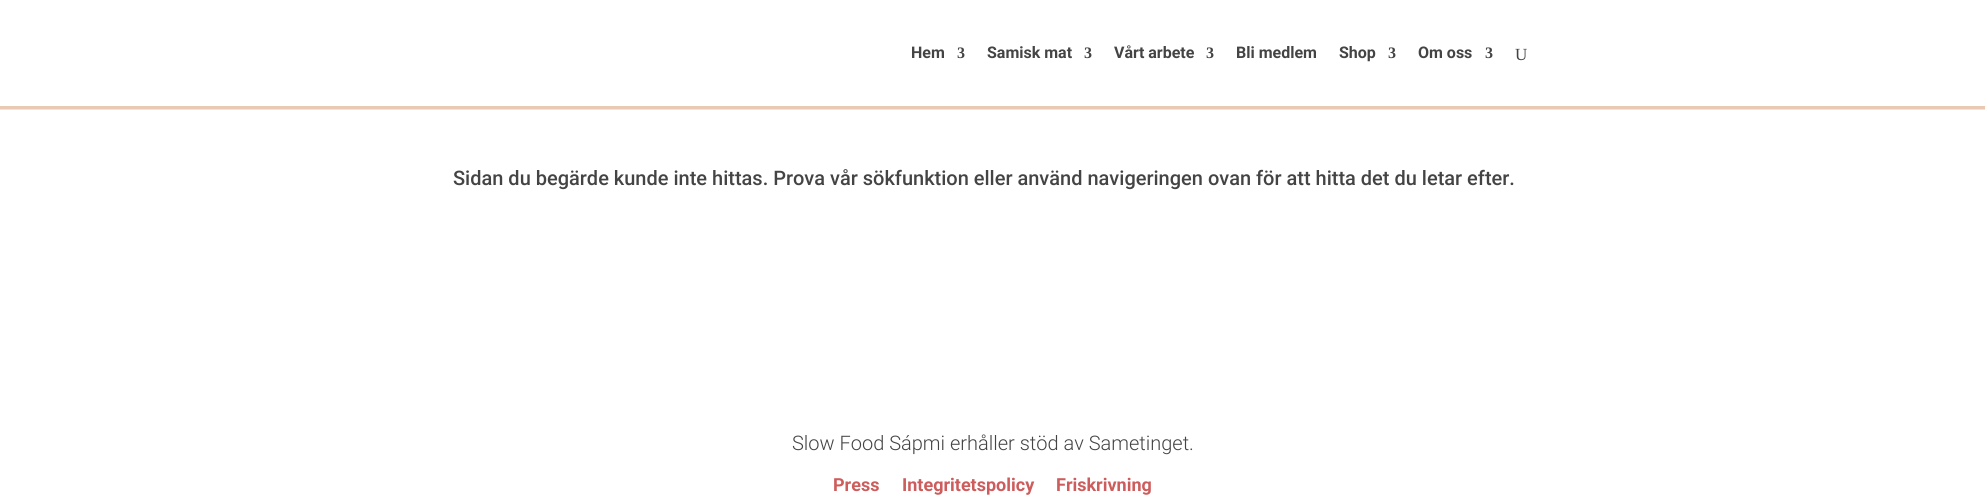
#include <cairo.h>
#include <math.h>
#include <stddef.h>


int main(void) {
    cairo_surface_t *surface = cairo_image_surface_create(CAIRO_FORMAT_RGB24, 1985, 500);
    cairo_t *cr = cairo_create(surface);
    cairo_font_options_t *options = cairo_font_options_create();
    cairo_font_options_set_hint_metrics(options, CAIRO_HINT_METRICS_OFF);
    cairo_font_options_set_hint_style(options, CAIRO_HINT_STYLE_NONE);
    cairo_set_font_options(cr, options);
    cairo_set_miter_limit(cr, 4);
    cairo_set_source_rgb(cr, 1, 1, 1);
    cairo_paint(cr);
    cairo_set_source_rgb(cr, 0.902, 0.902, 0.902);
    cairo_rectangle(cr, 0, 109, 1985, 1);
    cairo_fill(cr);
    cairo_set_source_rgb(cr, 0.914, 0.788, 0.706);
    cairo_rectangle(cr, 0, 106, 1985, 3);
    cairo_fill(cr);
    cairo_select_font_face(cr, "Roboto", CAIRO_FONT_SLANT_NORMAL, CAIRO_FONT_WEIGHT_BOLD);
    cairo_set_font_size(cr, 16);
    cairo_set_source_rgb(cr, 0.267, 0.267, 0.267);
    cairo_move_to(cr, 911, 58);
    cairo_show_text(cr, "Hem");
    cairo_select_font_face(cr, "Liberation Serif", CAIRO_FONT_SLANT_NORMAL, CAIRO_FONT_WEIGHT_BOLD);
    cairo_move_to(cr, 957, 58);
    cairo_show_text(cr, "3");
    cairo_select_font_face(cr, "Roboto", CAIRO_FONT_SLANT_NORMAL, CAIRO_FONT_WEIGHT_BOLD);
    cairo_move_to(cr, 987, 58);
    cairo_show_text(cr, "Samisk mat");
    cairo_select_font_face(cr, "Liberation Serif", CAIRO_FONT_SLANT_NORMAL, CAIRO_FONT_WEIGHT_BOLD);
    cairo_move_to(cr, 1084, 58);
    cairo_show_text(cr, "3");
    cairo_select_font_face(cr, "Roboto", CAIRO_FONT_SLANT_NORMAL, CAIRO_FONT_WEIGHT_BOLD);
    cairo_move_to(cr, 1114, 58);
    cairo_show_text(cr, "Vårt arbete");
    cairo_select_font_face(cr, "Liberation Serif", CAIRO_FONT_SLANT_NORMAL, CAIRO_FONT_WEIGHT_BOLD);
    cairo_move_to(cr, 1206, 58);
    cairo_show_text(cr, "3");
    cairo_select_font_face(cr, "Roboto", CAIRO_FONT_SLANT_NORMAL, CAIRO_FONT_WEIGHT_BOLD);
    cairo_move_to(cr, 1236, 58);
    cairo_show_text(cr, "Bli medlem");
    cairo_move_to(cr, 1339, 58);
    cairo_show_text(cr, "Shop");
    cairo_select_font_face(cr, "Liberation Serif", CAIRO_FONT_SLANT_NORMAL, CAIRO_FONT_WEIGHT_BOLD);
    cairo_move_to(cr, 1388, 58);
    cairo_show_text(cr, "3");
    cairo_select_font_face(cr, "Roboto", CAIRO_FONT_SLANT_NORMAL, CAIRO_FONT_WEIGHT_BOLD);
    cairo_move_to(cr, 1418, 58);
    cairo_show_text(cr, "Om oss");
    cairo_select_font_face(cr, "Liberation Serif", CAIRO_FONT_SLANT_NORMAL, CAIRO_FONT_WEIGHT_BOLD);
    cairo_move_to(cr, 1485, 58);
    cairo_show_text(cr, "3");
    cairo_select_font_face(cr, "Liberation Serif", CAIRO_FONT_SLANT_NORMAL, CAIRO_FONT_WEIGHT_NORMAL);
    cairo_set_font_size(cr, 17);
    cairo_move_to(cr, 1515, 60);
    cairo_show_text(cr, "U");
    cairo_select_font_face(cr, "Roboto Medium", CAIRO_FONT_SLANT_NORMAL, CAIRO_FONT_WEIGHT_NORMAL);
    cairo_set_font_size(cr, 20);
    cairo_move_to(cr, 453, 185);
    cairo_show_text(cr, "Sidan du begärde kunde inte hittas. Prova vår sökfunktion eller använd navigeringen ovan för att hitta det du letar efter.");
    cairo_select_font_face(cr, "Roboto Light", CAIRO_FONT_SLANT_NORMAL, CAIRO_FONT_WEIGHT_NORMAL);
    cairo_move_to(cr, 792, 450);
    cairo_show_text(cr, "Slow Food Sápmi erhåller stöd av Sametinget.");
    cairo_select_font_face(cr, "Roboto", CAIRO_FONT_SLANT_NORMAL, CAIRO_FONT_WEIGHT_BOLD);
    cairo_set_font_size(cr, 18);
    cairo_set_source_rgb(cr, 0.804, 0.361, 0.361);
    cairo_move_to(cr, 833, 491);
    cairo_show_text(cr, "Press");
    cairo_move_to(cr, 902, 491);
    cairo_show_text(cr, "Integritetspolicy");
    cairo_move_to(cr, 1056, 491);
    cairo_show_text(cr, "Friskrivning");
    cairo_surface_write_to_png(surface, "page.png");
    cairo_font_options_destroy(options);
    cairo_destroy(cr);
    cairo_surface_destroy(surface);
    return 0;
}
